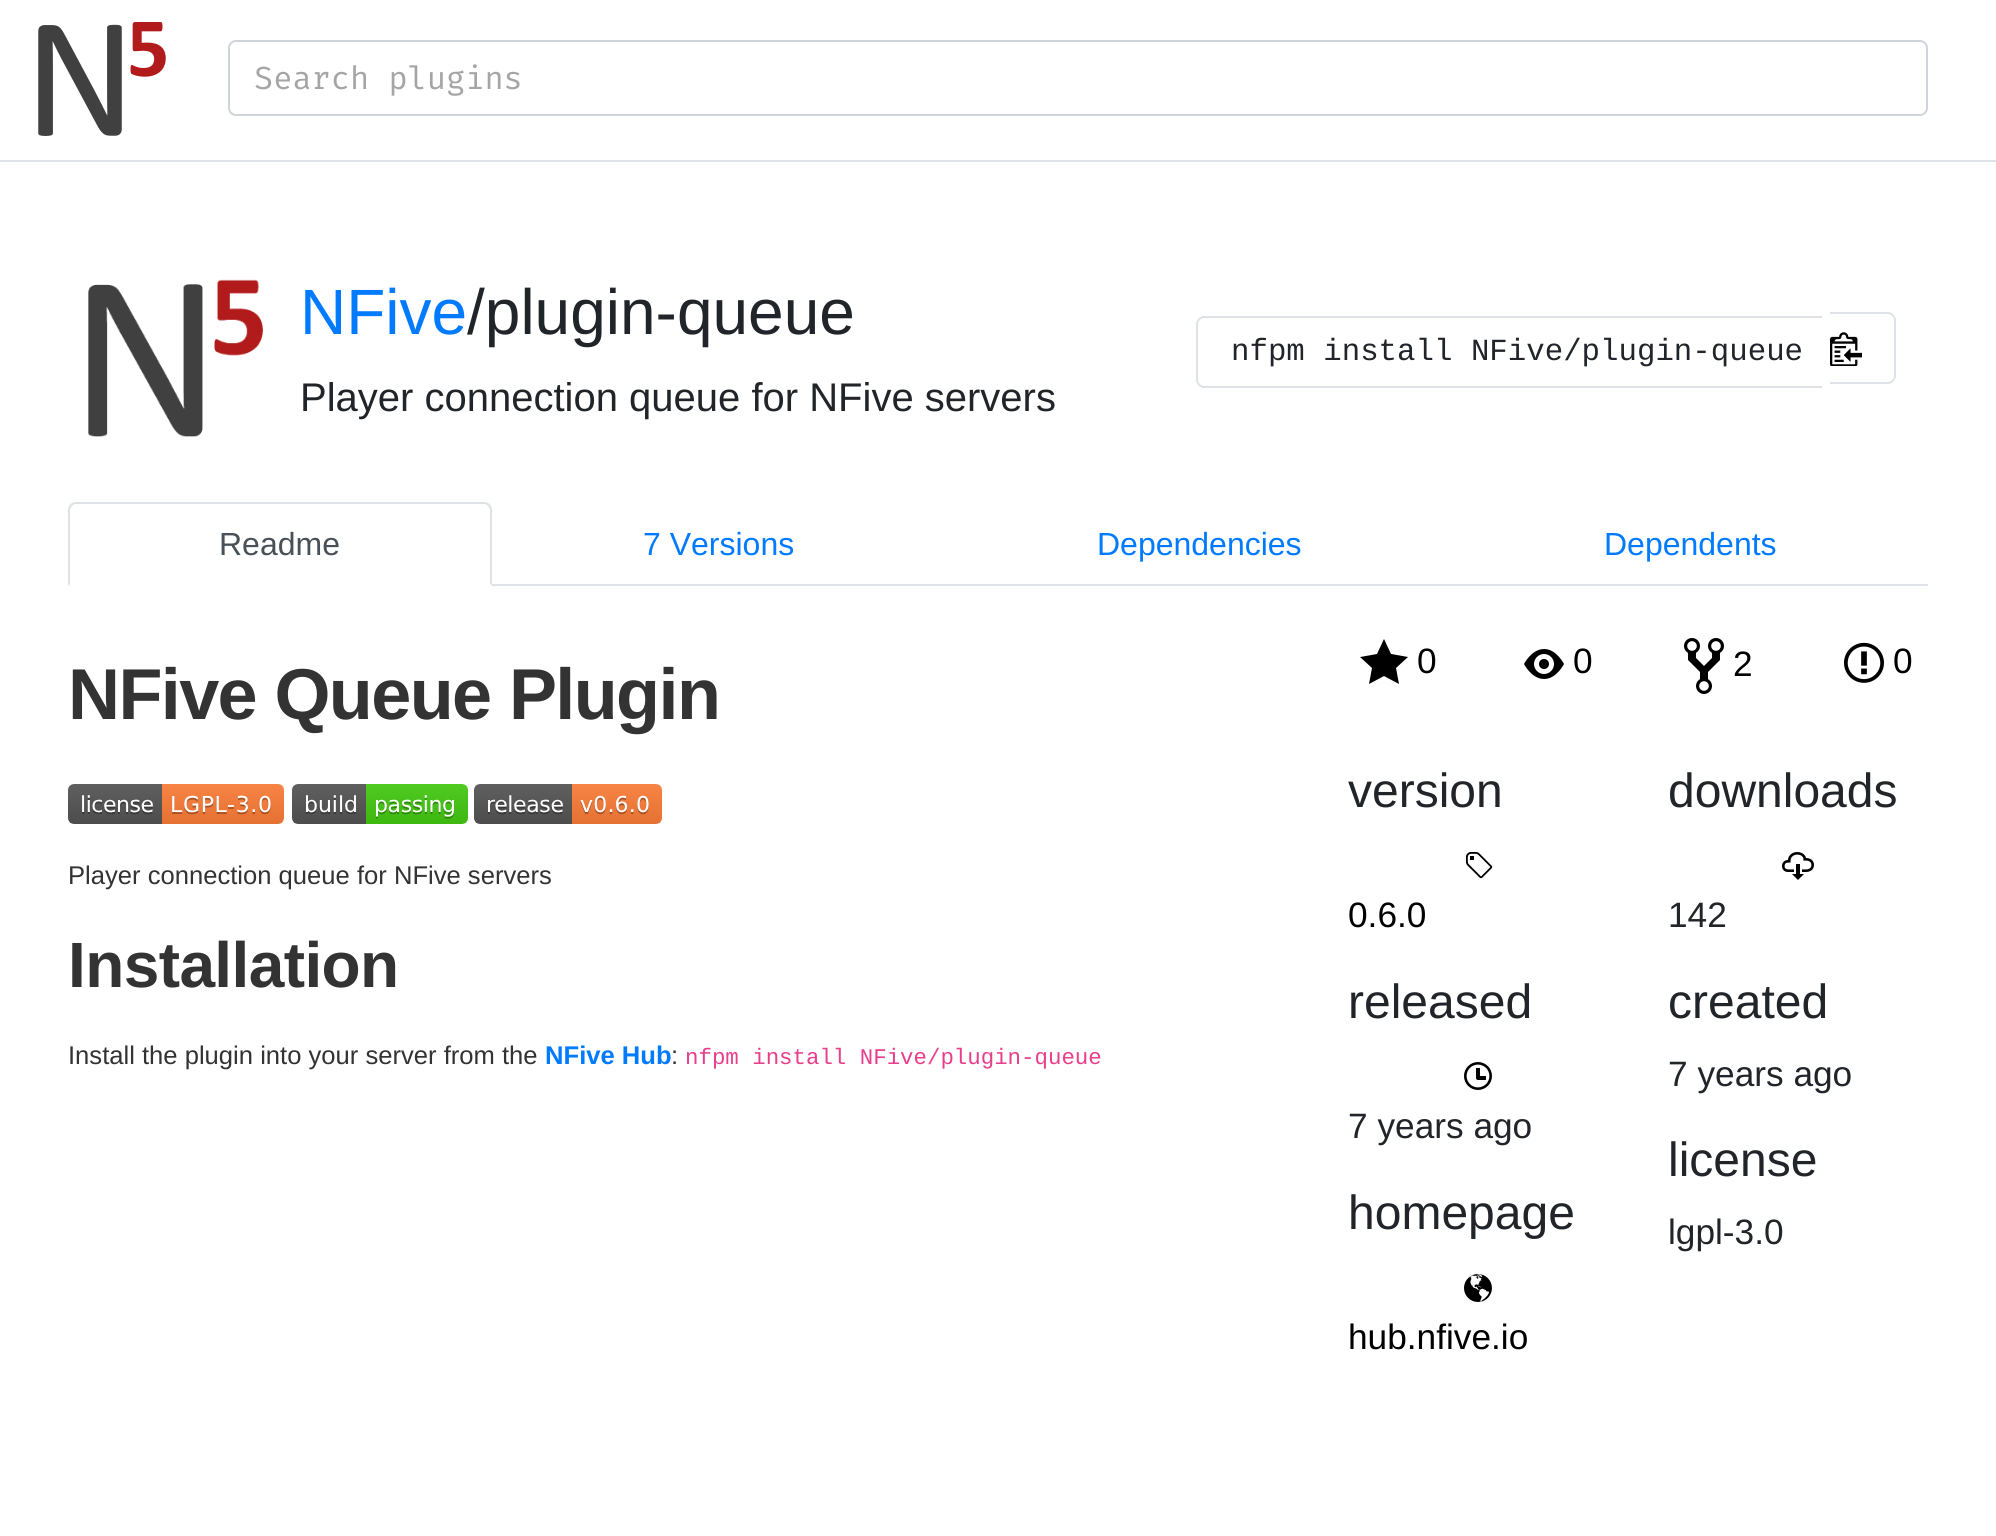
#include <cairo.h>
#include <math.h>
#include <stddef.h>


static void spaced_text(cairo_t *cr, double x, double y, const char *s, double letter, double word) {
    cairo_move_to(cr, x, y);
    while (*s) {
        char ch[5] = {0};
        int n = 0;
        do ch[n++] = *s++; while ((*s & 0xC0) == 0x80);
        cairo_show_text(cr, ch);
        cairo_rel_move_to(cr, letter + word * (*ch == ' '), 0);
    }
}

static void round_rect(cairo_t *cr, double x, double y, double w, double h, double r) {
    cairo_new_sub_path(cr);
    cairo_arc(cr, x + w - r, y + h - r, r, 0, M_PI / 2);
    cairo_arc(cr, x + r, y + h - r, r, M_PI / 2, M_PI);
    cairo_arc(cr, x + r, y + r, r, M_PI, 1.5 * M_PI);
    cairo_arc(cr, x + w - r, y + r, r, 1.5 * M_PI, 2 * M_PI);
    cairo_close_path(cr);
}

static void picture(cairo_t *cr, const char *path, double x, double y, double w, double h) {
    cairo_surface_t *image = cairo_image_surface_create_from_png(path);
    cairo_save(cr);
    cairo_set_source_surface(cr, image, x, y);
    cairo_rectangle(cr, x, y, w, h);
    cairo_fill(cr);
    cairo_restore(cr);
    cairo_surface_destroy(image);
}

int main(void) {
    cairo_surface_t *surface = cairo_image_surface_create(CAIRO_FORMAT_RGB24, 1996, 1536);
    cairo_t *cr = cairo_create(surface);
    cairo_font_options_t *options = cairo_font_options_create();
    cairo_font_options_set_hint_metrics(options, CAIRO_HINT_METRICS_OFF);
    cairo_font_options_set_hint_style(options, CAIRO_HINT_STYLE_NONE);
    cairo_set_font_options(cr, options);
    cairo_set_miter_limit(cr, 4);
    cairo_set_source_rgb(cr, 1, 1, 1);
    cairo_paint(cr);
    cairo_set_source_rgb(cr, 0.871, 0.886, 0.902);
    cairo_rectangle(cr, 0, 160, 1996, 2);
    cairo_fill(cr);
    picture(cr, "img1.png", 38, 22, 128, 114);
    round_rect(cr, 229, 41, 1698, 74, 7);
    cairo_set_source_rgb(cr, 0.808, 0.831, 0.855);
    cairo_stroke(cr);
    cairo_select_font_face(cr, "Fira Mono", CAIRO_FONT_SLANT_NORMAL, CAIRO_FONT_WEIGHT_NORMAL);
    cairo_set_font_size(cr, 32);
    cairo_set_source_rgb(cr, 0.647, 0.647, 0.647);
    cairo_move_to(cr, 254, 89);
    cairo_show_text(cr, "Search plugins");
    picture(cr, "img2.png", 88, 279, 175, 158);
    cairo_select_font_face(cr, "Liberation Sans", CAIRO_FONT_SLANT_NORMAL, CAIRO_FONT_WEIGHT_NORMAL);
    cairo_set_font_size(cr, 64);
    cairo_set_source_rgb(cr, 0, 0.482, 1);
    cairo_move_to(cr, 300, 334);
    cairo_show_text(cr, "NFive");
    cairo_set_source_rgb(cr, 0.129, 0.145, 0.161);
    cairo_move_to(cr, 467, 334);
    cairo_show_text(cr, "/plugin-queue");
    cairo_set_font_size(cr, 40);
    cairo_move_to(cr, 300, 411);
    cairo_show_text(cr, "Player connection queue for NFive servers");
    cairo_set_source_rgb(cr, 0.871, 0.886, 0.902);
    cairo_set_fill_rule(cr, CAIRO_FILL_RULE_EVEN_ODD);
    cairo_new_path(cr);
    cairo_move_to(cr, 1204, 316);
    cairo_line_to(cr, 1822, 316);
    cairo_line_to(cr, 1822, 388);
    cairo_line_to(cr, 1204, 388);
    cairo_curve_to(cr, 1200, 388, 1196, 384, 1196, 380);
    cairo_line_to(cr, 1196, 324);
    cairo_curve_to(cr, 1196, 320, 1200, 316, 1204, 316);
    cairo_close_path(cr);
    cairo_move_to(cr, 1204, 318);
    cairo_line_to(cr, 1822, 318);
    cairo_line_to(cr, 1822, 386);
    cairo_line_to(cr, 1204, 386);
    cairo_curve_to(cr, 1201, 386, 1198, 383, 1198, 380);
    cairo_line_to(cr, 1198, 324);
    cairo_curve_to(cr, 1198, 321, 1201, 318, 1204, 318);
    cairo_close_path(cr);
    cairo_fill(cr);
    cairo_select_font_face(cr, "Liberation Mono", CAIRO_FONT_SLANT_NORMAL, CAIRO_FONT_WEIGHT_NORMAL);
    cairo_set_font_size(cr, 30.75);
    cairo_set_source_rgb(cr, 0.129, 0.145, 0.161);
    cairo_move_to(cr, 1231, 360);
    cairo_show_text(cr, "nfpm install NFive/plugin-queue");
    cairo_set_source_rgb(cr, 0.871, 0.886, 0.902);
    cairo_new_path(cr);
    cairo_move_to(cr, 1830, 312);
    cairo_line_to(cr, 1888, 312);
    cairo_curve_to(cr, 1892, 312, 1896, 316, 1896, 320);
    cairo_line_to(cr, 1896, 376);
    cairo_curve_to(cr, 1896, 380, 1892, 384, 1888, 384);
    cairo_line_to(cr, 1830, 384);
    cairo_close_path(cr);
    cairo_move_to(cr, 1830, 314);
    cairo_line_to(cr, 1888, 314);
    cairo_curve_to(cr, 1891, 314, 1894, 317, 1894, 320);
    cairo_line_to(cr, 1894, 376);
    cairo_curve_to(cr, 1894, 379, 1891, 382, 1888, 382);
    cairo_line_to(cr, 1830, 382);
    cairo_close_path(cr);
    cairo_fill(cr);
    picture(cr, "img3.png", 1830, 332, 32, 34);
    cairo_rectangle(cr, 492, 584, 1436, 2);
    cairo_fill(cr);
    cairo_set_fill_rule(cr, CAIRO_FILL_RULE_WINDING);
    cairo_new_path(cr);
    cairo_move_to(cr, 76, 502);
    cairo_curve_to(cr, 74, 502, 72, 503, 70, 504);
    cairo_line_to(cr, 72, 506);
    cairo_curve_to(cr, 73, 505, 74, 504, 76, 504);
    cairo_line_to(cr, 484, 504);
    cairo_curve_to(cr, 486, 504, 487, 505, 488, 506);
    cairo_line_to(cr, 490, 504);
    cairo_curve_to(cr, 488, 503, 486, 502, 484, 502);
    cairo_close_path(cr);
    cairo_fill(cr);
    cairo_new_path(cr);
    cairo_move_to(cr, 492, 586);
    cairo_line_to(cr, 492, 510);
    cairo_curve_to(cr, 492, 508, 491, 506, 490, 504);
    cairo_line_to(cr, 488, 506);
    cairo_line_to(cr, 490, 509);
    cairo_line_to(cr, 490, 584);
    cairo_close_path(cr);
    cairo_fill(cr);
    cairo_set_source_rgb(cr, 1, 1, 1);
    cairo_new_path(cr);
    cairo_move_to(cr, 492, 586);
    cairo_line_to(cr, 490, 584);
    cairo_line_to(cr, 70, 584);
    cairo_line_to(cr, 68, 586);
    cairo_close_path(cr);
    cairo_fill(cr);
    cairo_set_source_rgb(cr, 0.871, 0.886, 0.902);
    cairo_new_path(cr);
    cairo_move_to(cr, 68, 586);
    cairo_line_to(cr, 70, 584);
    cairo_line_to(cr, 70, 509);
    cairo_line_to(cr, 72, 506);
    cairo_line_to(cr, 70, 504);
    cairo_curve_to(cr, 69, 506, 68, 508, 68, 510);
    cairo_close_path(cr);
    cairo_fill(cr);
    cairo_select_font_face(cr, "Liberation Sans", CAIRO_FONT_SLANT_NORMAL, CAIRO_FONT_WEIGHT_NORMAL);
    cairo_set_font_size(cr, 32);
    cairo_set_source_rgb(cr, 0.286, 0.314, 0.341);
    cairo_move_to(cr, 219, 555);
    cairo_show_text(cr, "Readme");
    cairo_set_source_rgb(cr, 0, 0.482, 1);
    cairo_move_to(cr, 643, 555);
    cairo_show_text(cr, "7 Versions");
    cairo_move_to(cr, 1097, 555);
    cairo_show_text(cr, "Dependencies");
    cairo_move_to(cr, 1604, 555);
    cairo_show_text(cr, "Dependents");
    cairo_select_font_face(cr, "Liberation Sans", CAIRO_FONT_SLANT_NORMAL, CAIRO_FONT_WEIGHT_BOLD);
    cairo_set_font_size(cr, 72);
    cairo_set_source_rgb(cr, 0.2, 0.2, 0.2);
    spaced_text(cr, 68, 719, "NFive Queue Plugin", -1.6, 0);
    picture(cr, "img4.png", 68, 784, 216, 40);
    picture(cr, "img5.png", 292, 784, 176, 40);
    picture(cr, "img6.png", 474, 784, 188, 40);
    cairo_select_font_face(cr, "Liberation Sans", CAIRO_FONT_SLANT_NORMAL, CAIRO_FONT_WEIGHT_NORMAL);
    cairo_set_font_size(cr, 25.6);
    cairo_move_to(cr, 68, 884);
    cairo_show_text(cr, "Player connection queue for NFive servers");
    cairo_select_font_face(cr, "Liberation Sans", CAIRO_FONT_SLANT_NORMAL, CAIRO_FONT_WEIGHT_BOLD);
    cairo_set_font_size(cr, 64);
    spaced_text(cr, 68, 987, "Installation", -0.6, 0);
    cairo_select_font_face(cr, "Liberation Sans", CAIRO_FONT_SLANT_NORMAL, CAIRO_FONT_WEIGHT_NORMAL);
    cairo_set_font_size(cr, 25.6);
    cairo_move_to(cr, 68, 1064);
    cairo_show_text(cr, "Install the plugin into your server from the");
    cairo_select_font_face(cr, "Liberation Sans", CAIRO_FONT_SLANT_NORMAL, CAIRO_FONT_WEIGHT_BOLD);
    cairo_set_source_rgb(cr, 0, 0.482, 1);
    cairo_move_to(cr, 545, 1064);
    cairo_show_text(cr, "NFive Hub");
    cairo_select_font_face(cr, "Liberation Sans", CAIRO_FONT_SLANT_NORMAL, CAIRO_FONT_WEIGHT_NORMAL);
    cairo_set_source_rgb(cr, 0.2, 0.2, 0.2);
    cairo_move_to(cr, 671, 1064);
    cairo_show_text(cr, ":");
    cairo_select_font_face(cr, "Liberation Mono", CAIRO_FONT_SLANT_NORMAL, CAIRO_FONT_WEIGHT_NORMAL);
    cairo_set_font_size(cr, 22.4);
    cairo_set_source_rgb(cr, 0.91, 0.243, 0.549);
    cairo_move_to(cr, 685, 1064);
    cairo_show_text(cr, "nfpm install NFive/plugin-queue");
    cairo_select_font_face(cr, "Liberation Sans", CAIRO_FONT_SLANT_NORMAL, CAIRO_FONT_WEIGHT_NORMAL);
    cairo_set_font_size(cr, 35.25);
    cairo_set_source_rgb(cr, 0, 0, 0);
    cairo_move_to(cr, 1417, 673);
    cairo_show_text(cr, "0");
    cairo_set_fill_rule(cr, CAIRO_FILL_RULE_EVEN_ODD);
    cairo_new_path(cr);
    cairo_move_to(cr, 1408, 657);
    cairo_line_to(cr, 1391, 654);
    cairo_line_to(cr, 1384, 639);
    cairo_line_to(cr, 1377, 654);
    cairo_line_to(cr, 1360, 657);
    cairo_line_to(cr, 1372, 668);
    cairo_line_to(cr, 1369, 684);
    cairo_line_to(cr, 1384, 676);
    cairo_line_to(cr, 1399, 684);
    cairo_line_to(cr, 1396, 668);
    cairo_close_path(cr);
    cairo_fill(cr);
    picture(cr, "img7.png", 1524, 649, 40, 30);
    cairo_move_to(cr, 1573, 673);
    cairo_show_text(cr, "0");
    picture(cr, "img8.png", 1684, 638, 40, 56);
    cairo_move_to(cr, 1733, 676);
    cairo_show_text(cr, "2");
    picture(cr, "img9.png", 1844, 642, 40, 41);
    cairo_move_to(cr, 1893, 673);
    cairo_show_text(cr, "0");
    cairo_set_font_size(cr, 48);
    cairo_set_source_rgb(cr, 0.129, 0.145, 0.161);
    cairo_move_to(cr, 1348, 807);
    cairo_show_text(cr, "version");
    picture(cr, "img10.png", 1466, 852, 27, 27);
    cairo_set_font_size(cr, 35.25);
    cairo_set_source_rgb(cr, 0, 0, 0);
    cairo_move_to(cr, 1348, 927);
    cairo_show_text(cr, "0.6.0");
    cairo_set_font_size(cr, 48);
    cairo_set_source_rgb(cr, 0.129, 0.145, 0.161);
    cairo_move_to(cr, 1348, 1018);
    cairo_show_text(cr, "released");
    picture(cr, "img11.png", 1464, 1062, 28, 28);
    cairo_set_font_size(cr, 35.25);
    cairo_move_to(cr, 1348, 1138);
    cairo_show_text(cr, "7 years ago");
    cairo_set_font_size(cr, 48);
    cairo_move_to(cr, 1348, 1229);
    cairo_show_text(cr, "homepage");
    picture(cr, "img12.png", 1464, 1274, 28, 28);
    cairo_set_font_size(cr, 35.25);
    cairo_set_source_rgb(cr, 0, 0, 0);
    cairo_move_to(cr, 1348, 1349);
    cairo_show_text(cr, "hub.nfive.io");
    cairo_set_font_size(cr, 48);
    cairo_set_source_rgb(cr, 0.129, 0.145, 0.161);
    cairo_move_to(cr, 1668, 807);
    cairo_show_text(cr, "downloads");
    picture(cr, "img13.png", 1782, 852, 32, 28);
    cairo_set_font_size(cr, 35.25);
    cairo_move_to(cr, 1668, 927);
    cairo_show_text(cr, "142");
    cairo_set_font_size(cr, 48);
    cairo_move_to(cr, 1668, 1018);
    cairo_show_text(cr, "created");
    cairo_set_font_size(cr, 35.25);
    cairo_move_to(cr, 1668, 1086);
    cairo_show_text(cr, "7 years ago");
    cairo_set_font_size(cr, 48);
    cairo_move_to(cr, 1668, 1176);
    cairo_show_text(cr, "license");
    cairo_set_font_size(cr, 35.25);
    cairo_move_to(cr, 1668, 1244);
    cairo_show_text(cr, "lgpl-3.0");
    cairo_surface_write_to_png(surface, "page.png");
    cairo_font_options_destroy(options);
    cairo_destroy(cr);
    cairo_surface_destroy(surface);
    return 0;
}
